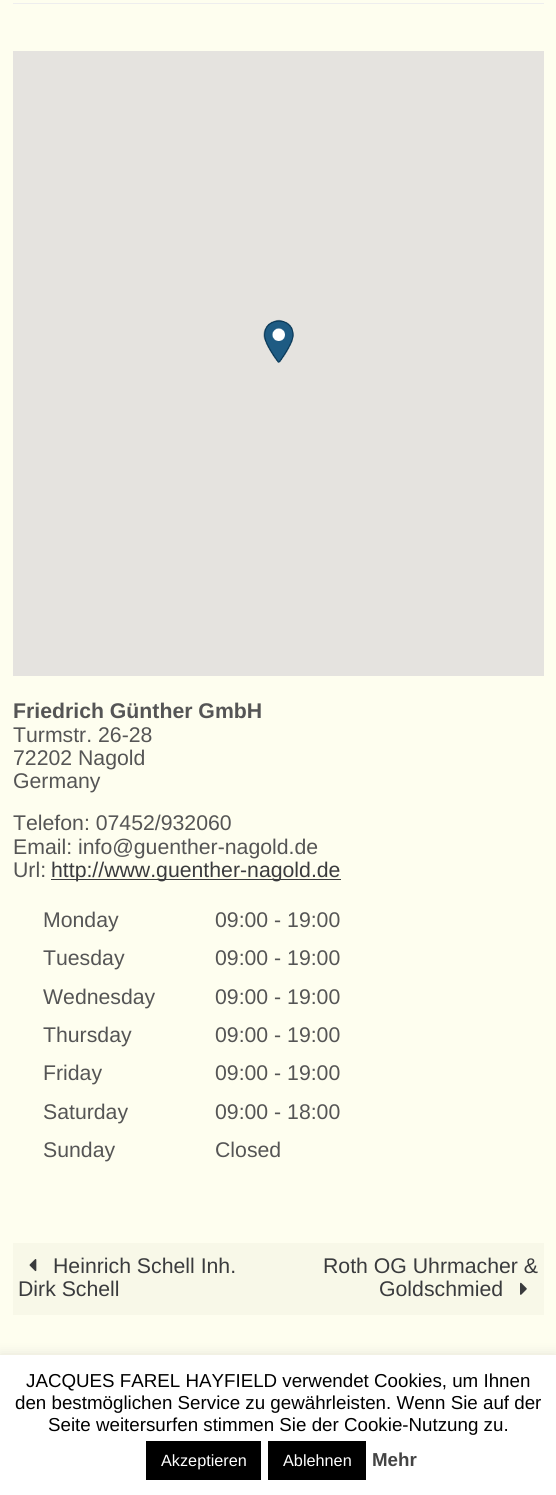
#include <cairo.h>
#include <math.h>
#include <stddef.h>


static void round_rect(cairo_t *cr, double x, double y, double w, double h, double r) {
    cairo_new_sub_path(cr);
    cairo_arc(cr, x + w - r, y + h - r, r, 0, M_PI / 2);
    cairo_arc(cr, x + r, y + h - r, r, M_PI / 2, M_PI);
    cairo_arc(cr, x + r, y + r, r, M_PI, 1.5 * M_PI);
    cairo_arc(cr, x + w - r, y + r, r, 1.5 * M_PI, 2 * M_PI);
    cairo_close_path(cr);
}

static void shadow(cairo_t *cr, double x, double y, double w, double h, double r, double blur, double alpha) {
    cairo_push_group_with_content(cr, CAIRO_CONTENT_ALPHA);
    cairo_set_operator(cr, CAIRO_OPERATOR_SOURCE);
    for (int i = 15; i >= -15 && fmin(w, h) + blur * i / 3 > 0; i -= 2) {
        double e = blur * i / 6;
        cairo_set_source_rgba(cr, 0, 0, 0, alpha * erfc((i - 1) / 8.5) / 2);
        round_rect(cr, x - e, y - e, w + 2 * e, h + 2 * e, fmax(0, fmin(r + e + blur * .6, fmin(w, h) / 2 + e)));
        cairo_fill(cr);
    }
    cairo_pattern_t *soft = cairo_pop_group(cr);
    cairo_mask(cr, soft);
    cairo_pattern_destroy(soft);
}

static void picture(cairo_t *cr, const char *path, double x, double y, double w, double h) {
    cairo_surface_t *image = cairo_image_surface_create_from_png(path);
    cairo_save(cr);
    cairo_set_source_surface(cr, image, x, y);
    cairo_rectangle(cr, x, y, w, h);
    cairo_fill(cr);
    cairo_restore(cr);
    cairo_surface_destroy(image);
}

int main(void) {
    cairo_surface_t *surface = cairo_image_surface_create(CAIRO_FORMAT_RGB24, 556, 1495);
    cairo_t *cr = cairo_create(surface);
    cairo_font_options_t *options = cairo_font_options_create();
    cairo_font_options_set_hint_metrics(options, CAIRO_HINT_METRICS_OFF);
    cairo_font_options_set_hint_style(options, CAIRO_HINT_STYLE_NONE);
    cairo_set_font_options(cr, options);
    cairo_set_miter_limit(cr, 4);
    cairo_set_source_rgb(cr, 0.996, 0.996, 0.937);
    cairo_paint(cr);
    cairo_set_source_rgb(cr, 0.933, 0.933, 0.933);
    cairo_rectangle(cr, 13, 3, 531, 1);
    cairo_fill(cr);
    cairo_set_source_rgb(cr, 0.898, 0.89, 0.875);
    cairo_rectangle(cr, 13, 51, 531, 625);
    cairo_fill(cr);
    picture(cr, "img1.png", 263, 319, 31, 44);
    cairo_select_font_face(cr, "Liberation Sans", CAIRO_FONT_SLANT_NORMAL, CAIRO_FONT_WEIGHT_BOLD);
    cairo_set_font_size(cr, 21.25);
    cairo_set_source_rgb(cr, 0.333, 0.333, 0.333);
    cairo_move_to(cr, 13, 718);
    cairo_show_text(cr, "Friedrich Günther GmbH");
    cairo_select_font_face(cr, "Liberation Sans", CAIRO_FONT_SLANT_NORMAL, CAIRO_FONT_WEIGHT_NORMAL);
    cairo_move_to(cr, 13, 742);
    cairo_show_text(cr, "Turmstr. 26-28");
    cairo_move_to(cr, 13, 765);
    cairo_show_text(cr, "72202 Nagold");
    cairo_move_to(cr, 13, 788);
    cairo_show_text(cr, "Germany");
    cairo_move_to(cr, 13, 830);
    cairo_show_text(cr, "Telefon: 07452/932060");
    cairo_move_to(cr, 13, 854);
    cairo_show_text(cr, "Email: info@guenther-nagold.de");
    cairo_move_to(cr, 13, 877);
    cairo_show_text(cr, "Url:");
    cairo_set_source_rgb(cr, 0.227, 0.231, 0.239);
    cairo_rectangle(cr, 51, 879, 290, 1);
    cairo_fill(cr);
    cairo_move_to(cr, 51, 877);
    cairo_show_text(cr, "http://www.guenther-nagold.de");
    cairo_set_source_rgb(cr, 0.333, 0.333, 0.333);
    cairo_move_to(cr, 43, 927);
    cairo_show_text(cr, "Monday");
    cairo_move_to(cr, 215, 927);
    cairo_show_text(cr, "09:00 - 19:00");
    cairo_move_to(cr, 43, 965);
    cairo_show_text(cr, "Tuesday");
    cairo_move_to(cr, 215, 965);
    cairo_show_text(cr, "09:00 - 19:00");
    cairo_move_to(cr, 43, 1004);
    cairo_show_text(cr, "Wednesday");
    cairo_move_to(cr, 215, 1004);
    cairo_show_text(cr, "09:00 - 19:00");
    cairo_move_to(cr, 43, 1042);
    cairo_show_text(cr, "Thursday");
    cairo_move_to(cr, 215, 1042);
    cairo_show_text(cr, "09:00 - 19:00");
    cairo_move_to(cr, 43, 1080);
    cairo_show_text(cr, "Friday");
    cairo_move_to(cr, 215, 1080);
    cairo_show_text(cr, "09:00 - 19:00");
    cairo_move_to(cr, 43, 1119);
    cairo_show_text(cr, "Saturday");
    cairo_move_to(cr, 215, 1119);
    cairo_show_text(cr, "09:00 - 18:00");
    cairo_move_to(cr, 43, 1157);
    cairo_show_text(cr, "Sunday");
    cairo_move_to(cr, 215, 1157);
    cairo_show_text(cr, "Closed");
    cairo_set_source_rgb(cr, 0.969, 0.969, 0.91);
    cairo_rectangle(cr, 13, 1243, 531, 72);
    cairo_fill(cr);
    picture(cr, "img2.png", 29, 1259, 8, 13);
    cairo_set_source_rgb(cr, 0.227, 0.231, 0.239);
    cairo_move_to(cr, 53, 1273);
    cairo_show_text(cr, "Heinrich Schell Inh.");
    cairo_move_to(cr, 18, 1296);
    cairo_show_text(cr, "Dirk Schell");
    cairo_move_to(cr, 323, 1273);
    cairo_show_text(cr, "Roth OG Uhrmacher &");
    cairo_move_to(cr, 379, 1296);
    cairo_show_text(cr, "Goldschmied");
    picture(cr, "img3.png", 520, 1282, 7, 13);
    cairo_set_source_rgb(cr, 0.675, 0.671, 0.671);
    shadow(cr, 0, 1354, 556, 140, 0, 6, 0.3);
    cairo_set_source_rgb(cr, 1, 1, 1);
    cairo_rectangle(cr, 0, 1355, 556, 140);
    cairo_fill(cr);
    cairo_set_font_size(cr, 18.75);
    cairo_set_source_rgb(cr, 0, 0, 0);
    cairo_move_to(cr, 26, 1387);
    cairo_show_text(cr, "JACQUES FAREL HAYFIELD verwendet Cookies, um Ihnen");
    cairo_move_to(cr, 15, 1409);
    cairo_show_text(cr, "den bestmöglichen Service zu gewährleisten. Wenn Sie auf der");
    cairo_move_to(cr, 48, 1431);
    cairo_show_text(cr, "Seite weitersurfen stimmen Sie der Cookie-Nutzung zu.");
    cairo_rectangle(cr, 146, 1441, 115, 39);
    cairo_fill(cr);
    cairo_set_font_size(cr, 16.25);
    cairo_set_source_rgb(cr, 1, 1, 1);
    cairo_move_to(cr, 161, 1466);
    cairo_show_text(cr, "Akzeptieren");
    cairo_set_source_rgb(cr, 0, 0, 0);
    cairo_rectangle(cr, 268, 1441, 98, 39);
    cairo_fill(cr);
    cairo_set_source_rgb(cr, 1, 1, 1);
    cairo_move_to(cr, 283, 1466);
    cairo_show_text(cr, "Ablehnen");
    cairo_select_font_face(cr, "Liberation Sans", CAIRO_FONT_SLANT_NORMAL, CAIRO_FONT_WEIGHT_BOLD);
    cairo_set_font_size(cr, 18.75);
    cairo_set_source_rgb(cr, 0.267, 0.267, 0.267);
    cairo_move_to(cr, 372, 1466);
    cairo_show_text(cr, "Mehr");
    cairo_surface_write_to_png(surface, "page.png");
    cairo_font_options_destroy(options);
    cairo_destroy(cr);
    cairo_surface_destroy(surface);
    return 0;
}
